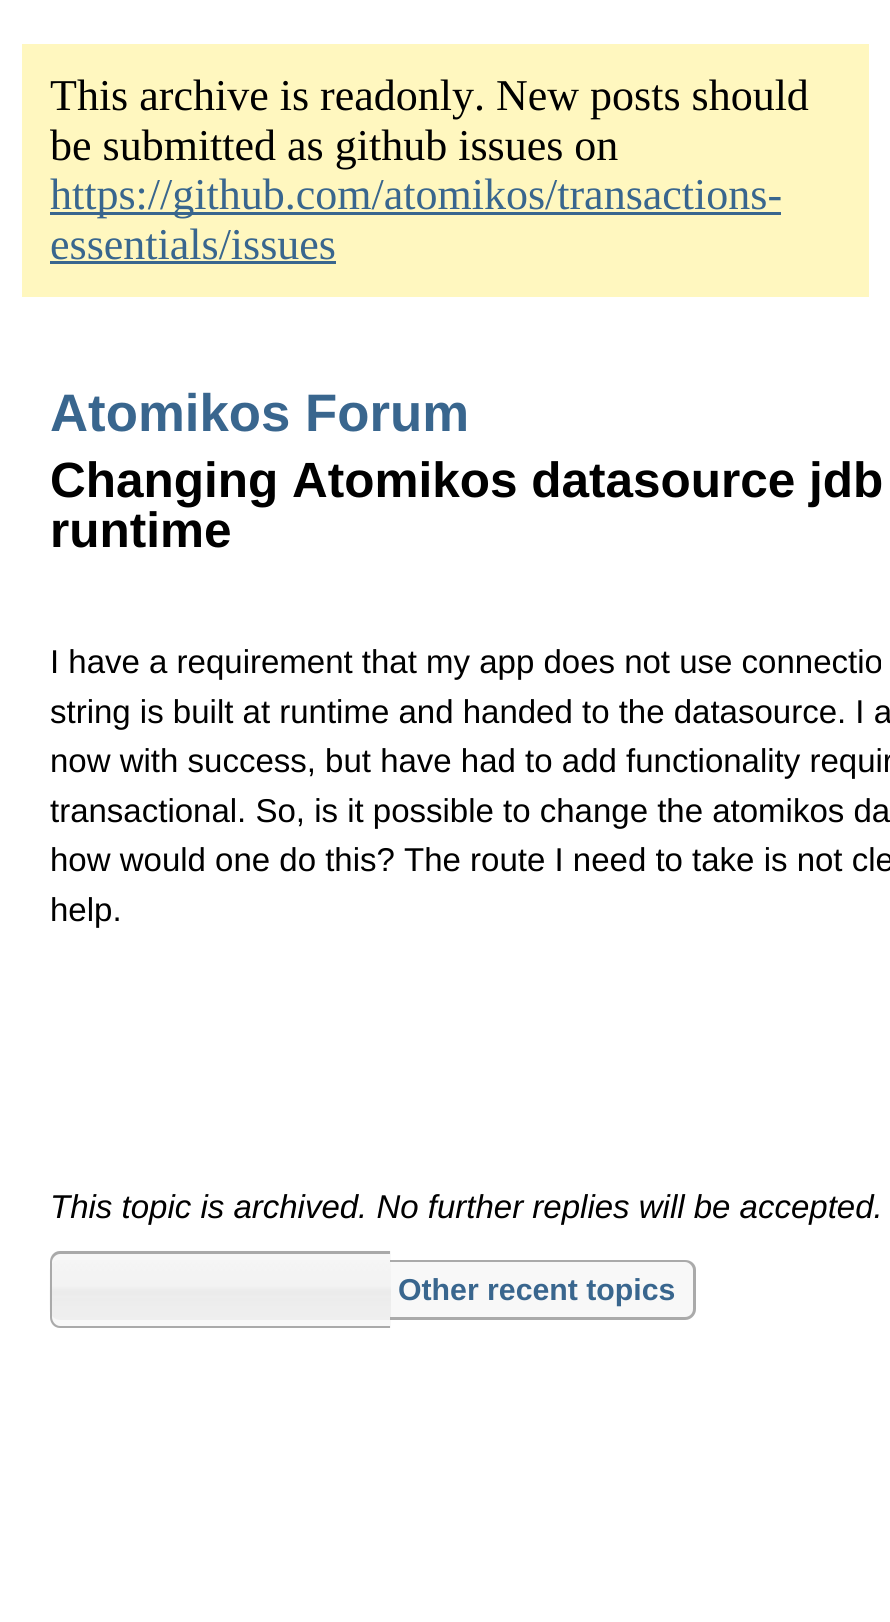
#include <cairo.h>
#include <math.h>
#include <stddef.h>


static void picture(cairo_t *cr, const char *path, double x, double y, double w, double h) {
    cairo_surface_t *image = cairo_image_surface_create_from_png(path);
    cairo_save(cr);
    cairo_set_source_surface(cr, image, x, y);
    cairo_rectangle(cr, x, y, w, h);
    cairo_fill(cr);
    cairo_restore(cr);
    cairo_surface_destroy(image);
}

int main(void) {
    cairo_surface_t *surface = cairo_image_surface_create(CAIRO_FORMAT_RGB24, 890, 1622);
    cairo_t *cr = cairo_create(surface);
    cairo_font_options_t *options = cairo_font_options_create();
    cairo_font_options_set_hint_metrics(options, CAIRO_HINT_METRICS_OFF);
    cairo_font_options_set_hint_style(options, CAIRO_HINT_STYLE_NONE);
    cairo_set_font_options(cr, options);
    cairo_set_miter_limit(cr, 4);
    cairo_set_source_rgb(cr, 1, 1, 1);
    cairo_paint(cr);
    cairo_set_source_rgb(cr, 1, 0.965, 0.749);
    cairo_rectangle(cr, 22, 44, 847, 253);
    cairo_fill(cr);
    cairo_select_font_face(cr, "Liberation Serif", CAIRO_FONT_SLANT_NORMAL, CAIRO_FONT_WEIGHT_NORMAL);
    cairo_set_font_size(cr, 44);
    cairo_set_source_rgb(cr, 0, 0, 0);
    cairo_move_to(cr, 50, 110);
    cairo_show_text(cr, "This archive is readonly. New posts should");
    cairo_move_to(cr, 50, 160);
    cairo_show_text(cr, "be submitted as github issues on");
    cairo_set_source_rgb(cr, 0.224, 0.4, 0.557);
    cairo_rectangle(cr, 50, 212, 731, 3);
    cairo_fill(cr);
    cairo_move_to(cr, 50, 209);
    cairo_show_text(cr, "https://github.com/atomikos/transactions-");
    cairo_move_to(cr, 50, 259);
    cairo_show_text(cr, "essentials/issues");
    cairo_rectangle(cr, 50, 261, 286, 3);
    cairo_fill(cr);
    cairo_select_font_face(cr, "Liberation Sans", CAIRO_FONT_SLANT_NORMAL, CAIRO_FONT_WEIGHT_BOLD);
    cairo_set_font_size(cr, 52.75);
    cairo_move_to(cr, 50, 431);
    cairo_show_text(cr, "Atomikos Forum");
    cairo_set_font_size(cr, 49.5);
    cairo_set_source_rgb(cr, 0, 0, 0);
    cairo_move_to(cr, 50, 497);
    cairo_show_text(cr, "Changing Atomikos datasource jdb");
    cairo_move_to(cr, 50, 547);
    cairo_show_text(cr, "runtime");
    cairo_select_font_face(cr, "Liberation Sans", CAIRO_FONT_SLANT_NORMAL, CAIRO_FONT_WEIGHT_NORMAL);
    cairo_set_font_size(cr, 33);
    cairo_move_to(cr, 50, 673);
    cairo_show_text(cr, "I have a requirement that my app does not use connectio");
    cairo_move_to(cr, 50, 723);
    cairo_show_text(cr, "string is built at runtime and handed to the datasource. I a");
    cairo_move_to(cr, 50, 772);
    cairo_show_text(cr, "now with success, but have had to add functionality requir");
    cairo_move_to(cr, 50, 822);
    cairo_show_text(cr, "transactional. So, is it possible to change the atomikos da");
    cairo_move_to(cr, 50, 871);
    cairo_show_text(cr, "how would one do this? The route I need to take is not cle");
    cairo_move_to(cr, 50, 921);
    cairo_show_text(cr, "help.");
    cairo_select_font_face(cr, "Liberation Sans", CAIRO_FONT_SLANT_ITALIC, CAIRO_FONT_WEIGHT_NORMAL);
    cairo_move_to(cr, 50, 1218);
    cairo_show_text(cr, "This topic is archived. No further replies will be accepted.");
    cairo_set_source_rgb(cr, 0.969, 0.969, 0.969);
    cairo_new_path(cr);
    cairo_move_to(cr, 61, 1251);
    cairo_line_to(cr, 391, 1251);
    cairo_line_to(cr, 391, 1328);
    cairo_line_to(cr, 61, 1328);
    cairo_curve_to(cr, 55, 1328, 50, 1323, 50, 1317);
    cairo_line_to(cr, 50, 1262);
    cairo_curve_to(cr, 50, 1256, 55, 1251, 61, 1251);
    cairo_close_path(cr);
    cairo_fill(cr);
    picture(cr, "img1.png", 49, 1260, 647, 60);
    cairo_new_path(cr);
    cairo_move_to(cr, 391, 1260);
    cairo_line_to(cr, 685, 1260);
    cairo_curve_to(cr, 691, 1260, 696, 1265, 696, 1271);
    cairo_line_to(cr, 696, 1309);
    cairo_curve_to(cr, 696, 1315, 691, 1320, 685, 1320);
    cairo_line_to(cr, 391, 1320);
    cairo_close_path(cr);
    cairo_fill(cr);
    cairo_set_source_rgb(cr, 0.667, 0.667, 0.667);
    cairo_set_fill_rule(cr, CAIRO_FILL_RULE_EVEN_ODD);
    cairo_new_path(cr);
    cairo_move_to(cr, 390, 1260);
    cairo_line_to(cr, 685, 1260);
    cairo_curve_to(cr, 691, 1260, 696, 1264, 696, 1270);
    cairo_line_to(cr, 696, 1309);
    cairo_curve_to(cr, 696, 1315, 691, 1320, 685, 1320);
    cairo_line_to(cr, 390, 1320);
    cairo_close_path(cr);
    cairo_move_to(cr, 390, 1262);
    cairo_line_to(cr, 685, 1262);
    cairo_curve_to(cr, 689, 1262, 693, 1266, 693, 1270);
    cairo_line_to(cr, 693, 1309);
    cairo_curve_to(cr, 693, 1314, 689, 1317, 685, 1317);
    cairo_line_to(cr, 390, 1317);
    cairo_close_path(cr);
    cairo_fill(cr);
    cairo_select_font_face(cr, "Liberation Sans", CAIRO_FONT_SLANT_NORMAL, CAIRO_FONT_WEIGHT_BOLD);
    cairo_set_font_size(cr, 30.25);
    cairo_set_source_rgb(cr, 0.224, 0.4, 0.557);
    cairo_move_to(cr, 398, 1300);
    cairo_show_text(cr, "Other recent topics");
    cairo_set_source_rgb(cr, 0.667, 0.667, 0.667);
    cairo_new_path(cr);
    cairo_move_to(cr, 60, 1251);
    cairo_line_to(cr, 390, 1251);
    cairo_line_to(cr, 390, 1328);
    cairo_line_to(cr, 60, 1328);
    cairo_curve_to(cr, 54, 1328, 50, 1323, 50, 1317);
    cairo_line_to(cr, 50, 1262);
    cairo_curve_to(cr, 50, 1256, 54, 1251, 60, 1251);
    cairo_close_path(cr);
    cairo_move_to(cr, 60, 1254);
    cairo_line_to(cr, 390, 1254);
    cairo_line_to(cr, 390, 1326);
    cairo_line_to(cr, 60, 1326);
    cairo_curve_to(cr, 56, 1326, 52, 1322, 52, 1317);
    cairo_line_to(cr, 52, 1262);
    cairo_curve_to(cr, 52, 1258, 56, 1254, 60, 1254);
    cairo_close_path(cr);
    cairo_fill(cr);
    cairo_surface_write_to_png(surface, "page.png");
    cairo_font_options_destroy(options);
    cairo_destroy(cr);
    cairo_surface_destroy(surface);
    return 0;
}
